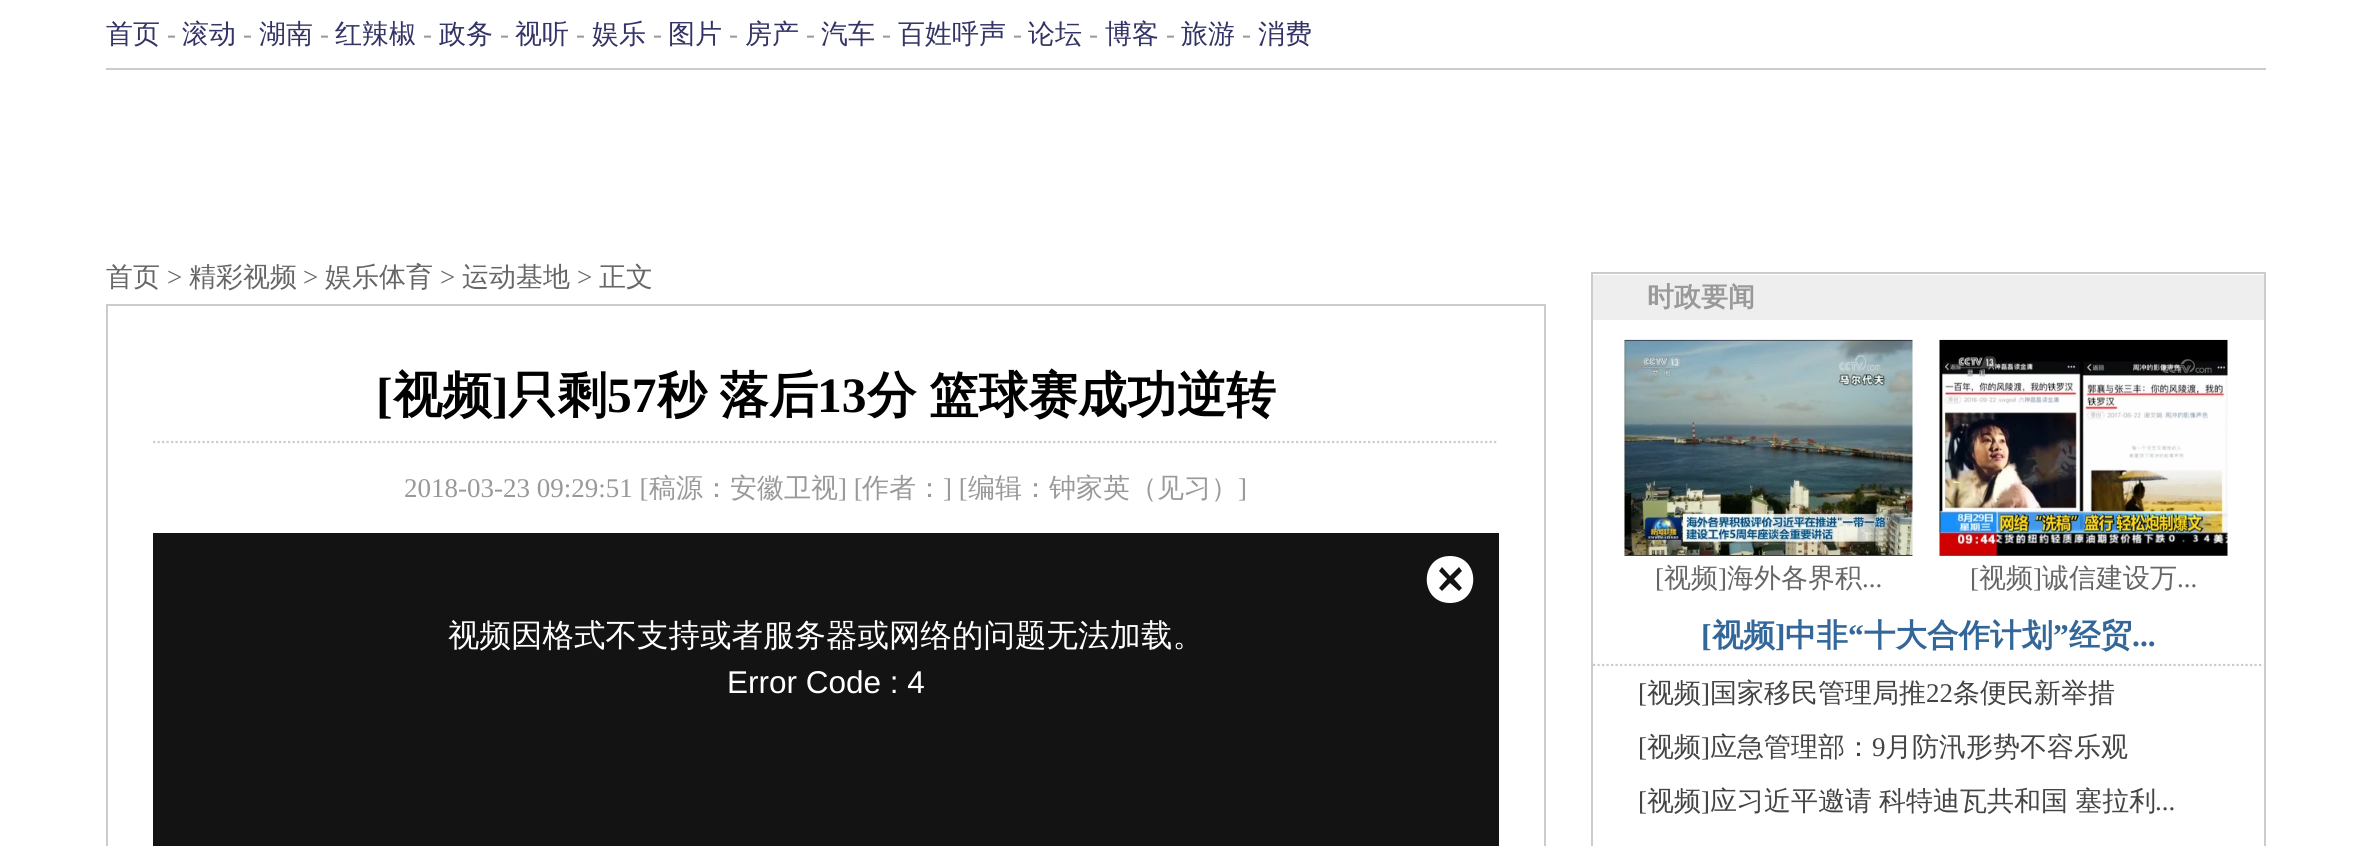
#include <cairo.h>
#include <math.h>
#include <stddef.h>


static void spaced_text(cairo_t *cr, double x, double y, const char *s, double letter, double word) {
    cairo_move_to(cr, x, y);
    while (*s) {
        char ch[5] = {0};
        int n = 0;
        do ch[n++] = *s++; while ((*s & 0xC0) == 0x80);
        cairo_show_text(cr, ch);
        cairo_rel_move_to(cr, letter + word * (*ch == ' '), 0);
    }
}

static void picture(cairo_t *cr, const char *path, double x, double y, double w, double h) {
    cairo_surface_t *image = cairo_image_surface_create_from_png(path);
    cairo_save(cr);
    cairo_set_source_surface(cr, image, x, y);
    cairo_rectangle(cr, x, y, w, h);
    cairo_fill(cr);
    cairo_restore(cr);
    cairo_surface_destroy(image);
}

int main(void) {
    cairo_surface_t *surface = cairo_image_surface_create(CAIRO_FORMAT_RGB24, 2370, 846);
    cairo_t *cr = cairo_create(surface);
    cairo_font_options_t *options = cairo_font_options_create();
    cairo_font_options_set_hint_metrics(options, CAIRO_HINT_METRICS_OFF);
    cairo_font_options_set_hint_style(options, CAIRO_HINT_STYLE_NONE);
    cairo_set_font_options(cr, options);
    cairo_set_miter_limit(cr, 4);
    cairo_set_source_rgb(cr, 1, 1, 1);
    cairo_paint(cr);
    cairo_set_source_rgb(cr, 0.8, 0.8, 0.8);
    cairo_rectangle(cr, 106, 68, 2160, 2);
    cairo_fill(cr);
    cairo_select_font_face(cr, "WenQuanYi Zen Hei Medium", CAIRO_FONT_SLANT_NORMAL, CAIRO_FONT_WEIGHT_NORMAL);
    cairo_set_font_size(cr, 27);
    cairo_set_source_rgb(cr, 0.2, 0.2, 0.4);
    cairo_move_to(cr, 106, 43);
    cairo_show_text(cr, "首页");
    cairo_select_font_face(cr, "Liberation Serif", CAIRO_FONT_SLANT_NORMAL, CAIRO_FONT_WEIGHT_NORMAL);
    cairo_set_source_rgb(cr, 0.6, 0.6, 0.6);
    cairo_move_to(cr, 167, 43);
    cairo_show_text(cr, "-");
    cairo_select_font_face(cr, "WenQuanYi Zen Hei Medium", CAIRO_FONT_SLANT_NORMAL, CAIRO_FONT_WEIGHT_NORMAL);
    cairo_set_source_rgb(cr, 0.2, 0.2, 0.4);
    cairo_move_to(cr, 182, 43);
    cairo_show_text(cr, "滚动");
    cairo_select_font_face(cr, "Liberation Serif", CAIRO_FONT_SLANT_NORMAL, CAIRO_FONT_WEIGHT_NORMAL);
    cairo_set_source_rgb(cr, 0.6, 0.6, 0.6);
    cairo_move_to(cr, 243, 43);
    cairo_show_text(cr, "-");
    cairo_select_font_face(cr, "WenQuanYi Zen Hei Medium", CAIRO_FONT_SLANT_NORMAL, CAIRO_FONT_WEIGHT_NORMAL);
    cairo_set_source_rgb(cr, 0.2, 0.2, 0.4);
    cairo_move_to(cr, 259, 43);
    cairo_show_text(cr, "湖南");
    cairo_select_font_face(cr, "Liberation Serif", CAIRO_FONT_SLANT_NORMAL, CAIRO_FONT_WEIGHT_NORMAL);
    cairo_set_source_rgb(cr, 0.6, 0.6, 0.6);
    cairo_move_to(cr, 320, 43);
    cairo_show_text(cr, "-");
    cairo_select_font_face(cr, "WenQuanYi Zen Hei Medium", CAIRO_FONT_SLANT_NORMAL, CAIRO_FONT_WEIGHT_NORMAL);
    cairo_set_source_rgb(cr, 0.2, 0.2, 0.4);
    cairo_move_to(cr, 335, 43);
    cairo_show_text(cr, "红辣椒");
    cairo_select_font_face(cr, "Liberation Serif", CAIRO_FONT_SLANT_NORMAL, CAIRO_FONT_WEIGHT_NORMAL);
    cairo_set_source_rgb(cr, 0.6, 0.6, 0.6);
    cairo_move_to(cr, 423, 43);
    cairo_show_text(cr, "-");
    cairo_select_font_face(cr, "WenQuanYi Zen Hei Medium", CAIRO_FONT_SLANT_NORMAL, CAIRO_FONT_WEIGHT_NORMAL);
    cairo_set_source_rgb(cr, 0.2, 0.2, 0.4);
    cairo_move_to(cr, 439, 43);
    cairo_show_text(cr, "政务");
    cairo_select_font_face(cr, "Liberation Serif", CAIRO_FONT_SLANT_NORMAL, CAIRO_FONT_WEIGHT_NORMAL);
    cairo_set_source_rgb(cr, 0.6, 0.6, 0.6);
    cairo_move_to(cr, 500, 43);
    cairo_show_text(cr, "-");
    cairo_select_font_face(cr, "WenQuanYi Zen Hei Medium", CAIRO_FONT_SLANT_NORMAL, CAIRO_FONT_WEIGHT_NORMAL);
    cairo_set_source_rgb(cr, 0.2, 0.2, 0.4);
    cairo_move_to(cr, 515, 43);
    cairo_show_text(cr, "视听");
    cairo_select_font_face(cr, "Liberation Serif", CAIRO_FONT_SLANT_NORMAL, CAIRO_FONT_WEIGHT_NORMAL);
    cairo_set_source_rgb(cr, 0.6, 0.6, 0.6);
    cairo_move_to(cr, 576, 43);
    cairo_show_text(cr, "-");
    cairo_select_font_face(cr, "WenQuanYi Zen Hei Medium", CAIRO_FONT_SLANT_NORMAL, CAIRO_FONT_WEIGHT_NORMAL);
    cairo_set_source_rgb(cr, 0.2, 0.2, 0.4);
    cairo_move_to(cr, 592, 43);
    cairo_show_text(cr, "娱乐");
    cairo_select_font_face(cr, "Liberation Serif", CAIRO_FONT_SLANT_NORMAL, CAIRO_FONT_WEIGHT_NORMAL);
    cairo_set_source_rgb(cr, 0.6, 0.6, 0.6);
    cairo_move_to(cr, 653, 43);
    cairo_show_text(cr, "-");
    cairo_select_font_face(cr, "WenQuanYi Zen Hei Medium", CAIRO_FONT_SLANT_NORMAL, CAIRO_FONT_WEIGHT_NORMAL);
    cairo_set_source_rgb(cr, 0.2, 0.2, 0.4);
    cairo_move_to(cr, 668, 43);
    cairo_show_text(cr, "图片");
    cairo_select_font_face(cr, "Liberation Serif", CAIRO_FONT_SLANT_NORMAL, CAIRO_FONT_WEIGHT_NORMAL);
    cairo_set_source_rgb(cr, 0.6, 0.6, 0.6);
    cairo_move_to(cr, 729, 43);
    cairo_show_text(cr, "-");
    cairo_select_font_face(cr, "WenQuanYi Zen Hei Medium", CAIRO_FONT_SLANT_NORMAL, CAIRO_FONT_WEIGHT_NORMAL);
    cairo_set_source_rgb(cr, 0.2, 0.2, 0.4);
    cairo_move_to(cr, 745, 43);
    cairo_show_text(cr, "房产");
    cairo_select_font_face(cr, "Liberation Serif", CAIRO_FONT_SLANT_NORMAL, CAIRO_FONT_WEIGHT_NORMAL);
    cairo_set_source_rgb(cr, 0.6, 0.6, 0.6);
    cairo_move_to(cr, 806, 43);
    cairo_show_text(cr, "-");
    cairo_select_font_face(cr, "WenQuanYi Zen Hei Medium", CAIRO_FONT_SLANT_NORMAL, CAIRO_FONT_WEIGHT_NORMAL);
    cairo_set_source_rgb(cr, 0.2, 0.2, 0.4);
    cairo_move_to(cr, 821, 43);
    cairo_show_text(cr, "汽车");
    cairo_select_font_face(cr, "Liberation Serif", CAIRO_FONT_SLANT_NORMAL, CAIRO_FONT_WEIGHT_NORMAL);
    cairo_set_source_rgb(cr, 0.6, 0.6, 0.6);
    cairo_move_to(cr, 882, 43);
    cairo_show_text(cr, "-");
    cairo_select_font_face(cr, "WenQuanYi Zen Hei Medium", CAIRO_FONT_SLANT_NORMAL, CAIRO_FONT_WEIGHT_NORMAL);
    cairo_set_source_rgb(cr, 0.2, 0.2, 0.4);
    cairo_move_to(cr, 898, 43);
    cairo_show_text(cr, "百姓呼声");
    cairo_select_font_face(cr, "Liberation Serif", CAIRO_FONT_SLANT_NORMAL, CAIRO_FONT_WEIGHT_NORMAL);
    cairo_set_source_rgb(cr, 0.6, 0.6, 0.6);
    cairo_move_to(cr, 1013, 43);
    cairo_show_text(cr, "-");
    cairo_select_font_face(cr, "WenQuanYi Zen Hei Medium", CAIRO_FONT_SLANT_NORMAL, CAIRO_FONT_WEIGHT_NORMAL);
    cairo_set_source_rgb(cr, 0.2, 0.2, 0.4);
    cairo_move_to(cr, 1028, 43);
    cairo_show_text(cr, "论坛");
    cairo_select_font_face(cr, "Liberation Serif", CAIRO_FONT_SLANT_NORMAL, CAIRO_FONT_WEIGHT_NORMAL);
    cairo_set_source_rgb(cr, 0.6, 0.6, 0.6);
    cairo_move_to(cr, 1089, 43);
    cairo_show_text(cr, "-");
    cairo_select_font_face(cr, "WenQuanYi Zen Hei Medium", CAIRO_FONT_SLANT_NORMAL, CAIRO_FONT_WEIGHT_NORMAL);
    cairo_set_source_rgb(cr, 0.2, 0.2, 0.4);
    cairo_move_to(cr, 1105, 43);
    cairo_show_text(cr, "博客");
    cairo_select_font_face(cr, "Liberation Serif", CAIRO_FONT_SLANT_NORMAL, CAIRO_FONT_WEIGHT_NORMAL);
    cairo_set_source_rgb(cr, 0.6, 0.6, 0.6);
    cairo_move_to(cr, 1166, 43);
    cairo_show_text(cr, "-");
    cairo_select_font_face(cr, "WenQuanYi Zen Hei Medium", CAIRO_FONT_SLANT_NORMAL, CAIRO_FONT_WEIGHT_NORMAL);
    cairo_set_source_rgb(cr, 0.2, 0.2, 0.4);
    cairo_move_to(cr, 1181, 43);
    cairo_show_text(cr, "旅游");
    cairo_select_font_face(cr, "Liberation Serif", CAIRO_FONT_SLANT_NORMAL, CAIRO_FONT_WEIGHT_NORMAL);
    cairo_set_source_rgb(cr, 0.6, 0.6, 0.6);
    cairo_move_to(cr, 1242, 43);
    cairo_show_text(cr, "-");
    cairo_select_font_face(cr, "WenQuanYi Zen Hei Medium", CAIRO_FONT_SLANT_NORMAL, CAIRO_FONT_WEIGHT_NORMAL);
    cairo_set_source_rgb(cr, 0.2, 0.2, 0.4);
    cairo_move_to(cr, 1258, 43);
    cairo_show_text(cr, "消费");
    cairo_set_source_rgb(cr, 0.4, 0.4, 0.4);
    cairo_move_to(cr, 106, 286);
    cairo_show_text(cr, "首页");
    cairo_select_font_face(cr, "Liberation Serif", CAIRO_FONT_SLANT_NORMAL, CAIRO_FONT_WEIGHT_NORMAL);
    cairo_move_to(cr, 167, 286);
    cairo_show_text(cr, ">");
    cairo_select_font_face(cr, "WenQuanYi Zen Hei Medium", CAIRO_FONT_SLANT_NORMAL, CAIRO_FONT_WEIGHT_NORMAL);
    cairo_move_to(cr, 189, 286);
    cairo_show_text(cr, "精彩视频");
    cairo_select_font_face(cr, "Liberation Serif", CAIRO_FONT_SLANT_NORMAL, CAIRO_FONT_WEIGHT_NORMAL);
    cairo_move_to(cr, 303, 286);
    cairo_show_text(cr, ">");
    cairo_select_font_face(cr, "WenQuanYi Zen Hei Medium", CAIRO_FONT_SLANT_NORMAL, CAIRO_FONT_WEIGHT_NORMAL);
    cairo_move_to(cr, 325, 286);
    cairo_show_text(cr, "娱乐体育");
    cairo_select_font_face(cr, "Liberation Serif", CAIRO_FONT_SLANT_NORMAL, CAIRO_FONT_WEIGHT_NORMAL);
    cairo_move_to(cr, 440, 286);
    cairo_show_text(cr, ">");
    cairo_select_font_face(cr, "WenQuanYi Zen Hei Medium", CAIRO_FONT_SLANT_NORMAL, CAIRO_FONT_WEIGHT_NORMAL);
    cairo_move_to(cr, 462, 286);
    cairo_show_text(cr, "运动基地");
    cairo_select_font_face(cr, "Liberation Serif", CAIRO_FONT_SLANT_NORMAL, CAIRO_FONT_WEIGHT_NORMAL);
    cairo_move_to(cr, 577, 286);
    cairo_show_text(cr, ">");
    cairo_select_font_face(cr, "WenQuanYi Zen Hei Medium", CAIRO_FONT_SLANT_NORMAL, CAIRO_FONT_WEIGHT_NORMAL);
    cairo_move_to(cr, 599, 286);
    cairo_show_text(cr, "正文");
    cairo_rectangle(cr, 107, 305, 1438, 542);
    cairo_set_source_rgb(cr, 0.8, 0.8, 0.8);
    cairo_stroke(cr);
    cairo_new_path(cr);
    cairo_move_to(cr, 153, 442);
    cairo_line_to(cr, 1498.5, 442);
    cairo_set_line_width(cr, 2.2);
    cairo_set_dash(cr, (double[]){2.25, 2.25}, 2, 0);
    cairo_stroke(cr);
    cairo_select_font_face(cr, "Liberation Serif", CAIRO_FONT_SLANT_NORMAL, CAIRO_FONT_WEIGHT_BOLD);
    cairo_set_font_size(cr, 49.5);
    cairo_set_source_rgb(cr, 0, 0, 0);
    cairo_move_to(cr, 376, 412);
    cairo_show_text(cr, "[");
    cairo_select_font_face(cr, "WenQuanYi Zen Hei", CAIRO_FONT_SLANT_NORMAL, CAIRO_FONT_WEIGHT_BOLD);
    cairo_move_to(cr, 393, 412);
    cairo_show_text(cr, "视频");
    cairo_select_font_face(cr, "Liberation Serif", CAIRO_FONT_SLANT_NORMAL, CAIRO_FONT_WEIGHT_BOLD);
    cairo_move_to(cr, 492, 412);
    cairo_show_text(cr, "]");
    cairo_select_font_face(cr, "WenQuanYi Zen Hei", CAIRO_FONT_SLANT_NORMAL, CAIRO_FONT_WEIGHT_BOLD);
    cairo_move_to(cr, 508, 412);
    cairo_show_text(cr, "只剩");
    cairo_select_font_face(cr, "Liberation Serif", CAIRO_FONT_SLANT_NORMAL, CAIRO_FONT_WEIGHT_BOLD);
    cairo_move_to(cr, 607, 412);
    cairo_show_text(cr, "57");
    cairo_select_font_face(cr, "WenQuanYi Zen Hei", CAIRO_FONT_SLANT_NORMAL, CAIRO_FONT_WEIGHT_BOLD);
    spaced_text(cr, 657, 412, "秒 落后", 0, -2);
    cairo_select_font_face(cr, "Liberation Serif", CAIRO_FONT_SLANT_NORMAL, CAIRO_FONT_WEIGHT_BOLD);
    cairo_move_to(cr, 817, 412);
    cairo_show_text(cr, "13");
    cairo_select_font_face(cr, "WenQuanYi Zen Hei", CAIRO_FONT_SLANT_NORMAL, CAIRO_FONT_WEIGHT_BOLD);
    spaced_text(cr, 867, 412, "分 篮球赛成功逆转", 0, -2);
    cairo_select_font_face(cr, "Liberation Serif", CAIRO_FONT_SLANT_NORMAL, CAIRO_FONT_WEIGHT_NORMAL);
    cairo_set_font_size(cr, 27);
    cairo_set_source_rgb(cr, 0.6, 0.6, 0.6);
    cairo_move_to(cr, 404, 497);
    cairo_show_text(cr, "2018-03-23 09:29:51 [");
    cairo_select_font_face(cr, "WenQuanYi Zen Hei Medium", CAIRO_FONT_SLANT_NORMAL, CAIRO_FONT_WEIGHT_NORMAL);
    cairo_move_to(cr, 649, 497);
    cairo_show_text(cr, "稿源：安徽卫视");
    cairo_select_font_face(cr, "Liberation Serif", CAIRO_FONT_SLANT_NORMAL, CAIRO_FONT_WEIGHT_NORMAL);
    cairo_move_to(cr, 838, 497);
    cairo_show_text(cr, "] [");
    cairo_select_font_face(cr, "WenQuanYi Zen Hei Medium", CAIRO_FONT_SLANT_NORMAL, CAIRO_FONT_WEIGHT_NORMAL);
    cairo_move_to(cr, 862, 497);
    cairo_show_text(cr, "作者：");
    cairo_select_font_face(cr, "Liberation Serif", CAIRO_FONT_SLANT_NORMAL, CAIRO_FONT_WEIGHT_NORMAL);
    cairo_move_to(cr, 943, 497);
    cairo_show_text(cr, "] [");
    cairo_select_font_face(cr, "WenQuanYi Zen Hei Medium", CAIRO_FONT_SLANT_NORMAL, CAIRO_FONT_WEIGHT_NORMAL);
    cairo_move_to(cr, 968, 497);
    cairo_show_text(cr, "编辑：钟家英（见习）");
    cairo_select_font_face(cr, "Liberation Serif", CAIRO_FONT_SLANT_NORMAL, CAIRO_FONT_WEIGHT_NORMAL);
    cairo_move_to(cr, 1238, 497);
    cairo_show_text(cr, "]");
    cairo_set_source_rgb(cr, 0.075, 0.075, 0.075);
    cairo_rectangle(cr, 153, 533, 1346, 313);
    cairo_fill(cr);
    cairo_set_source_rgb(cr, 1, 1, 1);
    cairo_new_path(cr);
    cairo_move_to(cr, 1450, 556);
    cairo_curve_to(cr, 1419, 556, 1419, 603, 1450, 603);
    cairo_curve_to(cr, 1481, 603, 1481, 556, 1450, 556);
    cairo_close_path(cr);
    cairo_move_to(cr, 1462, 588);
    cairo_line_to(cr, 1459, 591);
    cairo_line_to(cr, 1450, 583);
    cairo_line_to(cr, 1442, 591);
    cairo_line_to(cr, 1439, 588);
    cairo_line_to(cr, 1447, 579);
    cairo_line_to(cr, 1439, 571);
    cairo_line_to(cr, 1442, 567);
    cairo_line_to(cr, 1450, 576);
    cairo_line_to(cr, 1459, 567);
    cairo_line_to(cr, 1462, 571);
    cairo_line_to(cr, 1454, 579);
    cairo_close_path(cr);
    cairo_fill(cr);
    cairo_select_font_face(cr, "WenQuanYi Zen Hei Medium", CAIRO_FONT_SLANT_NORMAL, CAIRO_FONT_WEIGHT_NORMAL);
    cairo_set_font_size(cr, 31.5);
    cairo_move_to(cr, 448, 646);
    cairo_show_text(cr, "视频因格式不支持或者服务器或网络的问题无法加载。");
    cairo_select_font_face(cr, "Liberation Sans", CAIRO_FONT_SLANT_NORMAL, CAIRO_FONT_WEIGHT_NORMAL);
    cairo_move_to(cr, 727, 693);
    cairo_show_text(cr, "Error Code : 4");
    cairo_rectangle(cr, 1592, 273, 673, 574);
    cairo_set_source_rgb(cr, 0.8, 0.8, 0.8);
    cairo_set_line_width(cr, 2);
    cairo_set_dash(cr, NULL, 0, 0);
    cairo_stroke(cr);
    cairo_set_source_rgb(cr, 0.933, 0.933, 0.933);
    cairo_rectangle(cr, 1593, 275, 671, 45);
    cairo_fill(cr);
    cairo_select_font_face(cr, "WenQuanYi Zen Hei", CAIRO_FONT_SLANT_NORMAL, CAIRO_FONT_WEIGHT_BOLD);
    cairo_set_font_size(cr, 27);
    cairo_set_source_rgb(cr, 0.6, 0.6, 0.6);
    cairo_move_to(cr, 1647, 306);
    cairo_show_text(cr, "时政要闻");
    picture(cr, "img1.png", 1624, 339, 289, 217);
    cairo_select_font_face(cr, "Liberation Serif", CAIRO_FONT_SLANT_NORMAL, CAIRO_FONT_WEIGHT_NORMAL);
    cairo_set_source_rgb(cr, 0.4, 0.4, 0.4);
    cairo_move_to(cr, 1655, 587);
    cairo_show_text(cr, "[");
    cairo_select_font_face(cr, "WenQuanYi Zen Hei Medium", CAIRO_FONT_SLANT_NORMAL, CAIRO_FONT_WEIGHT_NORMAL);
    cairo_move_to(cr, 1664, 587);
    cairo_show_text(cr, "视频");
    cairo_select_font_face(cr, "Liberation Serif", CAIRO_FONT_SLANT_NORMAL, CAIRO_FONT_WEIGHT_NORMAL);
    cairo_move_to(cr, 1718, 587);
    cairo_show_text(cr, "]");
    cairo_select_font_face(cr, "WenQuanYi Zen Hei Medium", CAIRO_FONT_SLANT_NORMAL, CAIRO_FONT_WEIGHT_NORMAL);
    cairo_move_to(cr, 1727, 587);
    cairo_show_text(cr, "海外各界积");
    cairo_select_font_face(cr, "Liberation Serif", CAIRO_FONT_SLANT_NORMAL, CAIRO_FONT_WEIGHT_NORMAL);
    cairo_move_to(cr, 1862, 587);
    cairo_show_text(cr, "...");
    picture(cr, "img2.png", 1939, 339, 289, 217);
    cairo_move_to(cr, 1970, 587);
    cairo_show_text(cr, "[");
    cairo_select_font_face(cr, "WenQuanYi Zen Hei Medium", CAIRO_FONT_SLANT_NORMAL, CAIRO_FONT_WEIGHT_NORMAL);
    cairo_move_to(cr, 1979, 587);
    cairo_show_text(cr, "视频");
    cairo_select_font_face(cr, "Liberation Serif", CAIRO_FONT_SLANT_NORMAL, CAIRO_FONT_WEIGHT_NORMAL);
    cairo_move_to(cr, 2033, 587);
    cairo_show_text(cr, "]");
    cairo_select_font_face(cr, "WenQuanYi Zen Hei Medium", CAIRO_FONT_SLANT_NORMAL, CAIRO_FONT_WEIGHT_NORMAL);
    cairo_move_to(cr, 2042, 587);
    cairo_show_text(cr, "诚信建设万");
    cairo_select_font_face(cr, "Liberation Serif", CAIRO_FONT_SLANT_NORMAL, CAIRO_FONT_WEIGHT_NORMAL);
    cairo_move_to(cr, 2177, 587);
    cairo_show_text(cr, "...");
    cairo_new_path(cr);
    cairo_move_to(cr, 1593, 665);
    cairo_line_to(cr, 2263.5, 665);
    cairo_set_source_rgb(cr, 0.8, 0.8, 0.8);
    cairo_set_line_width(cr, 2.2);
    cairo_set_dash(cr, (double[]){2.25, 2.25}, 2, 0);
    cairo_stroke(cr);
    cairo_select_font_face(cr, "Liberation Serif", CAIRO_FONT_SLANT_NORMAL, CAIRO_FONT_WEIGHT_BOLD);
    cairo_set_font_size(cr, 31.5);
    cairo_set_source_rgb(cr, 0.2, 0.4, 0.6);
    cairo_move_to(cr, 1701, 646);
    cairo_show_text(cr, "[");
    cairo_select_font_face(cr, "WenQuanYi Zen Hei", CAIRO_FONT_SLANT_NORMAL, CAIRO_FONT_WEIGHT_BOLD);
    cairo_move_to(cr, 1712, 646);
    cairo_show_text(cr, "视频");
    cairo_select_font_face(cr, "Liberation Serif", CAIRO_FONT_SLANT_NORMAL, CAIRO_FONT_WEIGHT_BOLD);
    cairo_move_to(cr, 1775, 646);
    cairo_show_text(cr, "]");
    cairo_select_font_face(cr, "WenQuanYi Zen Hei", CAIRO_FONT_SLANT_NORMAL, CAIRO_FONT_WEIGHT_BOLD);
    cairo_move_to(cr, 1785, 646);
    cairo_show_text(cr, "中非");
    cairo_select_font_face(cr, "Liberation Serif", CAIRO_FONT_SLANT_NORMAL, CAIRO_FONT_WEIGHT_BOLD);
    cairo_move_to(cr, 1848, 646);
    cairo_show_text(cr, "“");
    cairo_select_font_face(cr, "WenQuanYi Zen Hei", CAIRO_FONT_SLANT_NORMAL, CAIRO_FONT_WEIGHT_BOLD);
    cairo_move_to(cr, 1864, 646);
    cairo_show_text(cr, "十大合作计划");
    cairo_select_font_face(cr, "Liberation Serif", CAIRO_FONT_SLANT_NORMAL, CAIRO_FONT_WEIGHT_BOLD);
    cairo_move_to(cr, 2053, 646);
    cairo_show_text(cr, "”");
    cairo_select_font_face(cr, "WenQuanYi Zen Hei", CAIRO_FONT_SLANT_NORMAL, CAIRO_FONT_WEIGHT_BOLD);
    cairo_move_to(cr, 2069, 646);
    cairo_show_text(cr, "经贸");
    cairo_select_font_face(cr, "Liberation Serif", CAIRO_FONT_SLANT_NORMAL, CAIRO_FONT_WEIGHT_BOLD);
    cairo_move_to(cr, 2132, 646);
    cairo_show_text(cr, "...");
    cairo_select_font_face(cr, "Liberation Serif", CAIRO_FONT_SLANT_NORMAL, CAIRO_FONT_WEIGHT_NORMAL);
    cairo_set_font_size(cr, 27);
    cairo_set_source_rgb(cr, 0.267, 0.267, 0.267);
    cairo_move_to(cr, 1638, 702);
    cairo_show_text(cr, "[");
    cairo_select_font_face(cr, "WenQuanYi Zen Hei Medium", CAIRO_FONT_SLANT_NORMAL, CAIRO_FONT_WEIGHT_NORMAL);
    cairo_move_to(cr, 1647, 702);
    cairo_show_text(cr, "视频");
    cairo_select_font_face(cr, "Liberation Serif", CAIRO_FONT_SLANT_NORMAL, CAIRO_FONT_WEIGHT_NORMAL);
    cairo_move_to(cr, 1701, 702);
    cairo_show_text(cr, "]");
    cairo_select_font_face(cr, "WenQuanYi Zen Hei Medium", CAIRO_FONT_SLANT_NORMAL, CAIRO_FONT_WEIGHT_NORMAL);
    cairo_move_to(cr, 1710, 702);
    cairo_show_text(cr, "国家移民管理局推");
    cairo_select_font_face(cr, "Liberation Serif", CAIRO_FONT_SLANT_NORMAL, CAIRO_FONT_WEIGHT_NORMAL);
    cairo_move_to(cr, 1926, 702);
    cairo_show_text(cr, "22");
    cairo_select_font_face(cr, "WenQuanYi Zen Hei Medium", CAIRO_FONT_SLANT_NORMAL, CAIRO_FONT_WEIGHT_NORMAL);
    cairo_move_to(cr, 1953, 702);
    cairo_show_text(cr, "条便民新举措");
    cairo_select_font_face(cr, "Liberation Serif", CAIRO_FONT_SLANT_NORMAL, CAIRO_FONT_WEIGHT_NORMAL);
    cairo_move_to(cr, 1638, 756);
    cairo_show_text(cr, "[");
    cairo_select_font_face(cr, "WenQuanYi Zen Hei Medium", CAIRO_FONT_SLANT_NORMAL, CAIRO_FONT_WEIGHT_NORMAL);
    cairo_move_to(cr, 1647, 756);
    cairo_show_text(cr, "视频");
    cairo_select_font_face(cr, "Liberation Serif", CAIRO_FONT_SLANT_NORMAL, CAIRO_FONT_WEIGHT_NORMAL);
    cairo_move_to(cr, 1701, 756);
    cairo_show_text(cr, "]");
    cairo_select_font_face(cr, "WenQuanYi Zen Hei Medium", CAIRO_FONT_SLANT_NORMAL, CAIRO_FONT_WEIGHT_NORMAL);
    cairo_move_to(cr, 1710, 756);
    cairo_show_text(cr, "应急管理部：");
    cairo_select_font_face(cr, "Liberation Serif", CAIRO_FONT_SLANT_NORMAL, CAIRO_FONT_WEIGHT_NORMAL);
    cairo_move_to(cr, 1872, 756);
    cairo_show_text(cr, "9");
    cairo_select_font_face(cr, "WenQuanYi Zen Hei Medium", CAIRO_FONT_SLANT_NORMAL, CAIRO_FONT_WEIGHT_NORMAL);
    cairo_move_to(cr, 1885, 756);
    cairo_show_text(cr, "月防汛形势不容乐观");
    cairo_select_font_face(cr, "Liberation Serif", CAIRO_FONT_SLANT_NORMAL, CAIRO_FONT_WEIGHT_NORMAL);
    cairo_move_to(cr, 1638, 810);
    cairo_show_text(cr, "[");
    cairo_select_font_face(cr, "WenQuanYi Zen Hei Medium", CAIRO_FONT_SLANT_NORMAL, CAIRO_FONT_WEIGHT_NORMAL);
    cairo_move_to(cr, 1647, 810);
    cairo_show_text(cr, "视频");
    cairo_select_font_face(cr, "Liberation Serif", CAIRO_FONT_SLANT_NORMAL, CAIRO_FONT_WEIGHT_NORMAL);
    cairo_move_to(cr, 1701, 810);
    cairo_show_text(cr, "]");
    cairo_select_font_face(cr, "WenQuanYi Zen Hei Medium", CAIRO_FONT_SLANT_NORMAL, CAIRO_FONT_WEIGHT_NORMAL);
    spaced_text(cr, 1710, 810, "应习近平邀请 科特迪瓦共和国 塞拉利", 0, -1);
    cairo_select_font_face(cr, "Liberation Serif", CAIRO_FONT_SLANT_NORMAL, CAIRO_FONT_WEIGHT_NORMAL);
    cairo_move_to(cr, 2155, 810);
    cairo_show_text(cr, "...");
    cairo_surface_write_to_png(surface, "page.png");
    cairo_font_options_destroy(options);
    cairo_destroy(cr);
    cairo_surface_destroy(surface);
    return 0;
}
